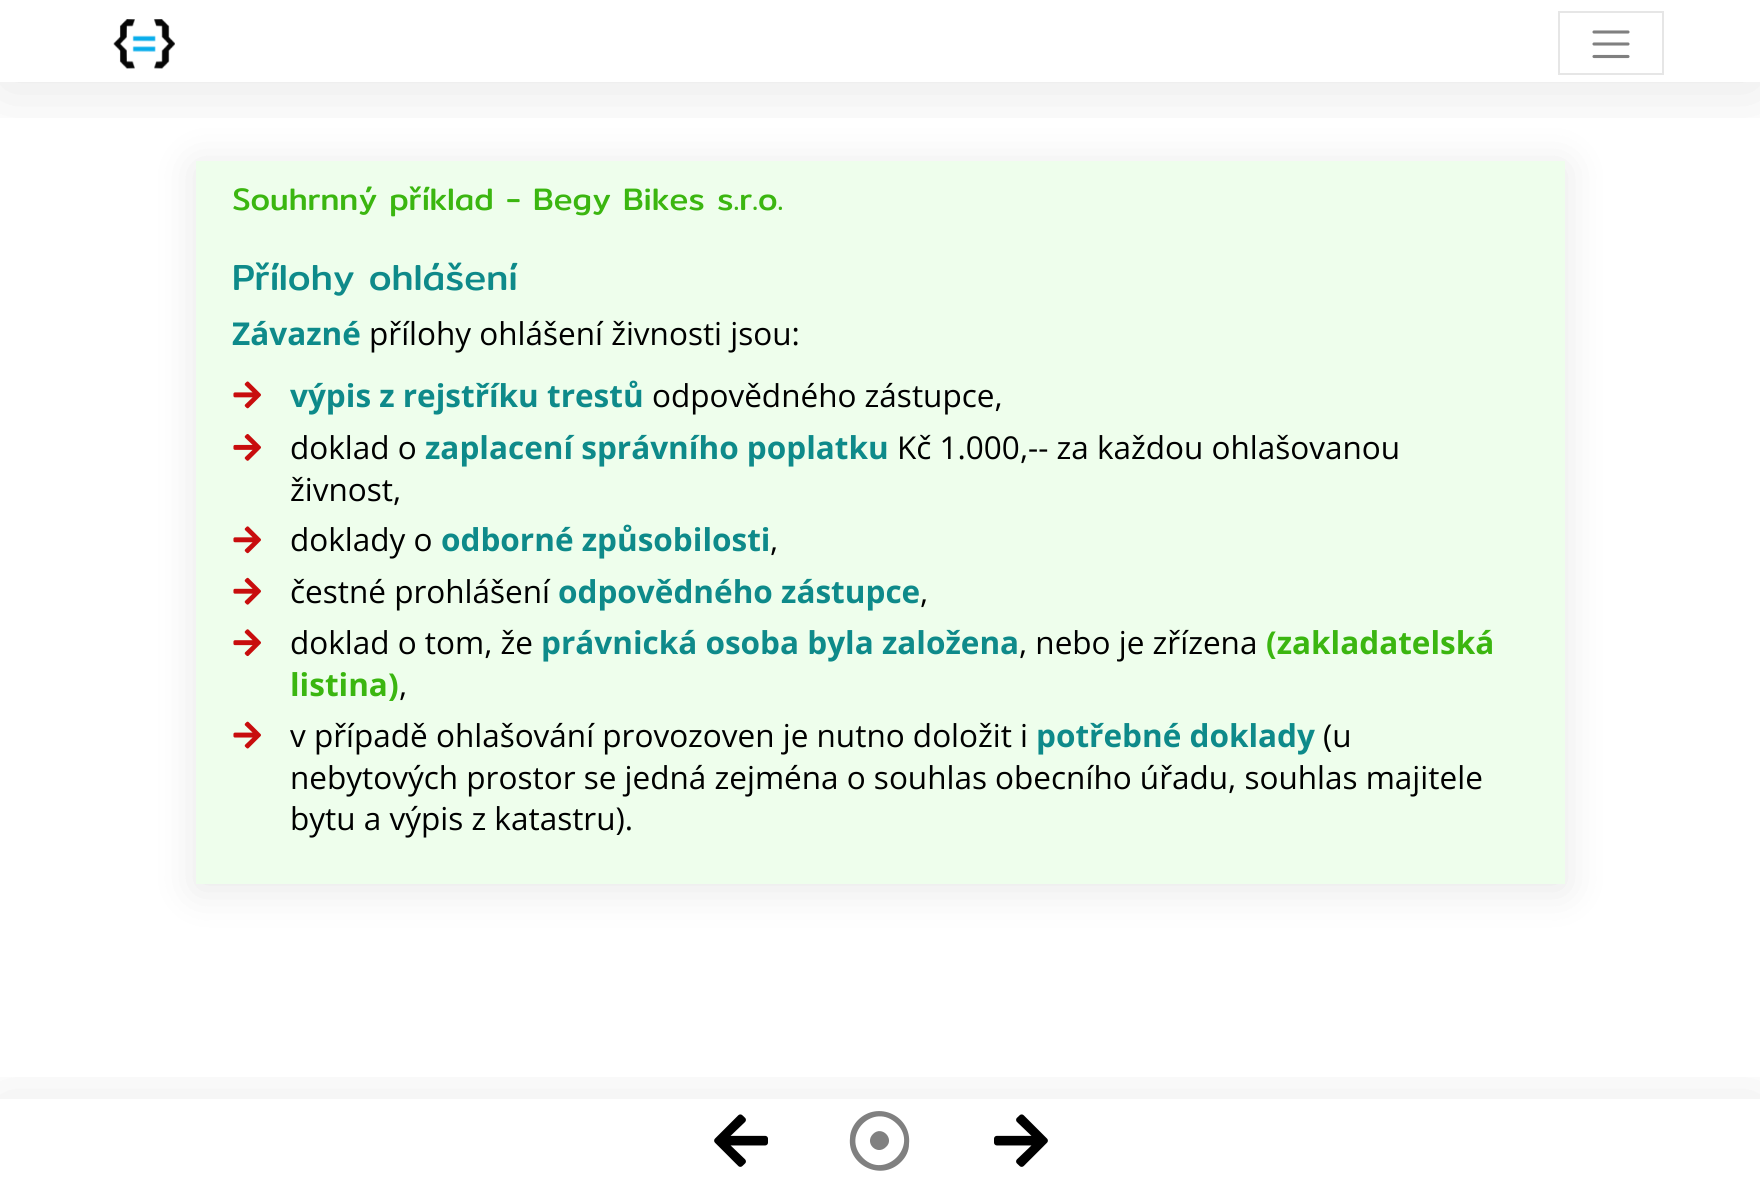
#include <cairo.h>
#include <math.h>
#include <stddef.h>


static void round_rect(cairo_t *cr, double x, double y, double w, double h, double r) {
    cairo_new_sub_path(cr);
    cairo_arc(cr, x + w - r, y + h - r, r, 0, M_PI / 2);
    cairo_arc(cr, x + r, y + h - r, r, M_PI / 2, M_PI);
    cairo_arc(cr, x + r, y + r, r, M_PI, 1.5 * M_PI);
    cairo_arc(cr, x + w - r, y + r, r, 1.5 * M_PI, 2 * M_PI);
    cairo_close_path(cr);
}

static void shadow(cairo_t *cr, double x, double y, double w, double h, double r, double blur, double alpha) {
    cairo_push_group_with_content(cr, CAIRO_CONTENT_ALPHA);
    cairo_set_operator(cr, CAIRO_OPERATOR_SOURCE);
    for (int i = 15; i >= -15 && fmin(w, h) + blur * i / 3 > 0; i -= 2) {
        double e = blur * i / 6;
        cairo_set_source_rgba(cr, 0, 0, 0, alpha * erfc((i - 1) / 8.5) / 2);
        round_rect(cr, x - e, y - e, w + 2 * e, h + 2 * e, fmax(0, fmin(r + e + blur * .6, fmin(w, h) / 2 + e)));
        cairo_fill(cr);
    }
    cairo_pattern_t *soft = cairo_pop_group(cr);
    cairo_mask(cr, soft);
    cairo_pattern_destroy(soft);
}

static void picture(cairo_t *cr, const char *path, double x, double y, double w, double h) {
    cairo_surface_t *image = cairo_image_surface_create_from_png(path);
    cairo_save(cr);
    cairo_set_source_surface(cr, image, x, y);
    cairo_rectangle(cr, x, y, w, h);
    cairo_fill(cr);
    cairo_restore(cr);
    cairo_surface_destroy(image);
}

int main(void) {
    cairo_surface_t *surface = cairo_image_surface_create(CAIRO_FORMAT_RGB24, 1760, 1180);
    cairo_t *cr = cairo_create(surface);
    cairo_font_options_t *options = cairo_font_options_create();
    cairo_font_options_set_hint_metrics(options, CAIRO_HINT_METRICS_OFF);
    cairo_font_options_set_hint_style(options, CAIRO_HINT_STYLE_NONE);
    cairo_set_font_options(cr, options);
    cairo_set_miter_limit(cr, 4);
    cairo_set_source_rgb(cr, 1, 1, 1);
    cairo_paint(cr);
    cairo_set_source_rgb(cr, 0, 0, 0);
    shadow(cr, 196, 166, 1369, 723, 0, 21, 0.1);
    cairo_set_source_rgb(cr, 0.933, 0.996, 0.922);
    cairo_rectangle(cr, 196, 161, 1369, 723);
    cairo_fill(cr);
    cairo_save(cr);
    cairo_rectangle(cr, 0, 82, 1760, 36);
    cairo_clip(cr);
    cairo_set_source_rgb(cr, 0, 0, 0);
    shadow(cr, 0, 7, 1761, 82, 0, 35, 0.1);
    cairo_restore(cr);
    picture(cr, "img1.png", 113, 19, 62, 50);
    cairo_rectangle(cr, 1559, 12, 104, 62);
    cairo_set_source_rgb(cr, 0.902, 0.902, 0.902);
    cairo_stroke(cr);
    cairo_new_path(cr);
    cairo_move_to(cr, 1594, 32);
    cairo_line_to(cr, 1628, 32);
    cairo_move_to(cr, 1594, 44);
    cairo_line_to(cr, 1628, 44);
    cairo_move_to(cr, 1594, 56.5);
    cairo_line_to(cr, 1628, 56.5);
    cairo_set_source_rgb(cr, 0.502, 0.502, 0.502);
    cairo_set_line_width(cr, 3.1);
    cairo_set_line_cap(cr, CAIRO_LINE_CAP_ROUND);
    cairo_stroke(cr);
    cairo_select_font_face(cr, "Mitr", CAIRO_FONT_SLANT_NORMAL, CAIRO_FONT_WEIGHT_NORMAL);
    cairo_set_font_size(cr, 31.5);
    cairo_set_source_rgb(cr, 0.231, 0.714, 0.063);
    cairo_move_to(cr, 232, 210);
    cairo_show_text(cr, "Souhrnný příklad - Begy Bikes s.r.o.");
    cairo_set_font_size(cr, 36.75);
    cairo_set_source_rgb(cr, 0.055, 0.541, 0.541);
    cairo_move_to(cr, 232, 290);
    cairo_show_text(cr, "Přílohy ohlášení");
    cairo_select_font_face(cr, "Open Sans", CAIRO_FONT_SLANT_NORMAL, CAIRO_FONT_WEIGHT_BOLD);
    cairo_set_font_size(cr, 31.5);
    cairo_move_to(cr, 232, 345);
    cairo_show_text(cr, "Závazné");
    cairo_select_font_face(cr, "Open Sans", CAIRO_FONT_SLANT_NORMAL, CAIRO_FONT_WEIGHT_NORMAL);
    cairo_set_source_rgb(cr, 0, 0, 0);
    cairo_move_to(cr, 369, 345);
    cairo_show_text(cr, "přílohy ohlášení živnosti jsou:");
    picture(cr, "img2.png", 233, 381, 28, 28);
    cairo_select_font_face(cr, "Open Sans", CAIRO_FONT_SLANT_NORMAL, CAIRO_FONT_WEIGHT_BOLD);
    cairo_set_source_rgb(cr, 0.055, 0.541, 0.541);
    cairo_move_to(cr, 290, 407);
    cairo_show_text(cr, "výpis z rejstříku trestů");
    cairo_select_font_face(cr, "Open Sans", CAIRO_FONT_SLANT_NORMAL, CAIRO_FONT_WEIGHT_NORMAL);
    cairo_set_source_rgb(cr, 0, 0, 0);
    cairo_move_to(cr, 652, 407);
    cairo_show_text(cr, "odpovědného zástupce,");
    picture(cr, "img3.png", 233, 434, 28, 27);
    cairo_move_to(cr, 290, 459);
    cairo_show_text(cr, "doklad o");
    cairo_select_font_face(cr, "Open Sans", CAIRO_FONT_SLANT_NORMAL, CAIRO_FONT_WEIGHT_BOLD);
    cairo_set_source_rgb(cr, 0.055, 0.541, 0.541);
    cairo_move_to(cr, 425, 459);
    cairo_show_text(cr, "zaplacení správního poplatku");
    cairo_select_font_face(cr, "Open Sans", CAIRO_FONT_SLANT_NORMAL, CAIRO_FONT_WEIGHT_NORMAL);
    cairo_set_source_rgb(cr, 0, 0, 0);
    cairo_move_to(cr, 897, 459);
    cairo_show_text(cr, "Kč 1.000,-- za každou ohlašovanou");
    cairo_move_to(cr, 290, 501);
    cairo_show_text(cr, "živnost,");
    picture(cr, "img4.png", 233, 526, 28, 28);
    cairo_move_to(cr, 290, 551);
    cairo_show_text(cr, "doklady o");
    cairo_select_font_face(cr, "Open Sans", CAIRO_FONT_SLANT_NORMAL, CAIRO_FONT_WEIGHT_BOLD);
    cairo_set_source_rgb(cr, 0.055, 0.541, 0.541);
    cairo_move_to(cr, 441, 551);
    cairo_show_text(cr, "odborné způsobilosti");
    cairo_select_font_face(cr, "Open Sans", CAIRO_FONT_SLANT_NORMAL, CAIRO_FONT_WEIGHT_NORMAL);
    cairo_set_source_rgb(cr, 0, 0, 0);
    cairo_move_to(cr, 770, 551);
    cairo_show_text(cr, ",");
    picture(cr, "img5.png", 233, 577, 28, 28);
    cairo_move_to(cr, 290, 603);
    cairo_show_text(cr, "čestné prohlášení");
    cairo_select_font_face(cr, "Open Sans", CAIRO_FONT_SLANT_NORMAL, CAIRO_FONT_WEIGHT_BOLD);
    cairo_set_source_rgb(cr, 0.055, 0.541, 0.541);
    cairo_move_to(cr, 558, 603);
    cairo_show_text(cr, "odpovědného zástupce");
    cairo_select_font_face(cr, "Open Sans", CAIRO_FONT_SLANT_NORMAL, CAIRO_FONT_WEIGHT_NORMAL);
    cairo_set_source_rgb(cr, 0, 0, 0);
    cairo_move_to(cr, 920, 603);
    cairo_show_text(cr, ",");
    picture(cr, "img6.png", 233, 629, 28, 28);
    cairo_move_to(cr, 290, 654);
    cairo_show_text(cr, "doklad o tom, že");
    cairo_select_font_face(cr, "Open Sans", CAIRO_FONT_SLANT_NORMAL, CAIRO_FONT_WEIGHT_BOLD);
    cairo_set_source_rgb(cr, 0.055, 0.541, 0.541);
    cairo_move_to(cr, 541, 654);
    cairo_show_text(cr, "právnická osoba byla založena");
    cairo_select_font_face(cr, "Open Sans", CAIRO_FONT_SLANT_NORMAL, CAIRO_FONT_WEIGHT_NORMAL);
    cairo_set_source_rgb(cr, 0, 0, 0);
    cairo_move_to(cr, 1019, 654);
    cairo_show_text(cr, ", nebo je zřízena");
    cairo_select_font_face(cr, "Open Sans", CAIRO_FONT_SLANT_NORMAL, CAIRO_FONT_WEIGHT_BOLD);
    cairo_set_source_rgb(cr, 0.231, 0.714, 0.063);
    cairo_move_to(cr, 1266, 654);
    cairo_show_text(cr, "(zakladatelská");
    cairo_move_to(cr, 290, 696);
    cairo_show_text(cr, "listina)");
    cairo_select_font_face(cr, "Open Sans", CAIRO_FONT_SLANT_NORMAL, CAIRO_FONT_WEIGHT_NORMAL);
    cairo_set_source_rgb(cr, 0, 0, 0);
    cairo_move_to(cr, 399, 696);
    cairo_show_text(cr, ",");
    picture(cr, "img7.png", 233, 721, 28, 28);
    cairo_move_to(cr, 290, 747);
    cairo_show_text(cr, "v případě ohlašování provozoven je nutno doložit i");
    cairo_select_font_face(cr, "Open Sans", CAIRO_FONT_SLANT_NORMAL, CAIRO_FONT_WEIGHT_BOLD);
    cairo_set_source_rgb(cr, 0.055, 0.541, 0.541);
    cairo_move_to(cr, 1036, 747);
    cairo_show_text(cr, "potřebné doklady");
    cairo_select_font_face(cr, "Open Sans", CAIRO_FONT_SLANT_NORMAL, CAIRO_FONT_WEIGHT_NORMAL);
    cairo_set_source_rgb(cr, 0, 0, 0);
    cairo_move_to(cr, 1323, 747);
    cairo_show_text(cr, "(u");
    cairo_move_to(cr, 290, 789);
    cairo_show_text(cr, "nebytových prostor se jedná zejména o souhlas obecního úřadu, souhlas majitele");
    cairo_move_to(cr, 290, 830);
    cairo_show_text(cr, "bytu a výpis z katastru).");
    cairo_save(cr);
    cairo_rectangle(cr, 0, 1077, 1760, 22);
    cairo_clip(cr);
    cairo_set_source_rgb(cr, 0, 0, 0);
    shadow(cr, 0, 1106, 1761, 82, 0, 35, 0.1);
    cairo_restore(cr);
    picture(cr, "img8.png", 714, 1114, 54, 53);
    cairo_set_source_rgb(cr, 0.502, 0.502, 0.502);
    cairo_new_path(cr);
    cairo_move_to(cr, 897, 1124);
    cairo_curve_to(cr, 874, 1101, 840, 1135, 863, 1158);
    cairo_curve_to(cr, 885, 1180, 919, 1146, 897, 1124);
    cairo_close_path(cr);
    cairo_move_to(cr, 858, 1120);
    cairo_curve_to(cr, 878, 1100, 912, 1116, 909, 1144);
    cairo_curve_to(cr, 909, 1151, 906, 1157, 901, 1162);
    cairo_curve_to(cr, 881, 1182, 847, 1165, 850, 1138);
    cairo_curve_to(cr, 850, 1131, 854, 1124, 858, 1120);
    cairo_close_path(cr);
    cairo_move_to(cr, 873, 1134);
    cairo_curve_to(cr, 882, 1125, 895, 1139, 886, 1147);
    cairo_curve_to(cr, 877, 1156, 864, 1143, 873, 1134);
    cairo_close_path(cr);
    cairo_fill(cr);
    picture(cr, "img9.png", 994, 1114, 54, 53);
    cairo_surface_write_to_png(surface, "page.png");
    cairo_font_options_destroy(options);
    cairo_destroy(cr);
    cairo_surface_destroy(surface);
    return 0;
}
